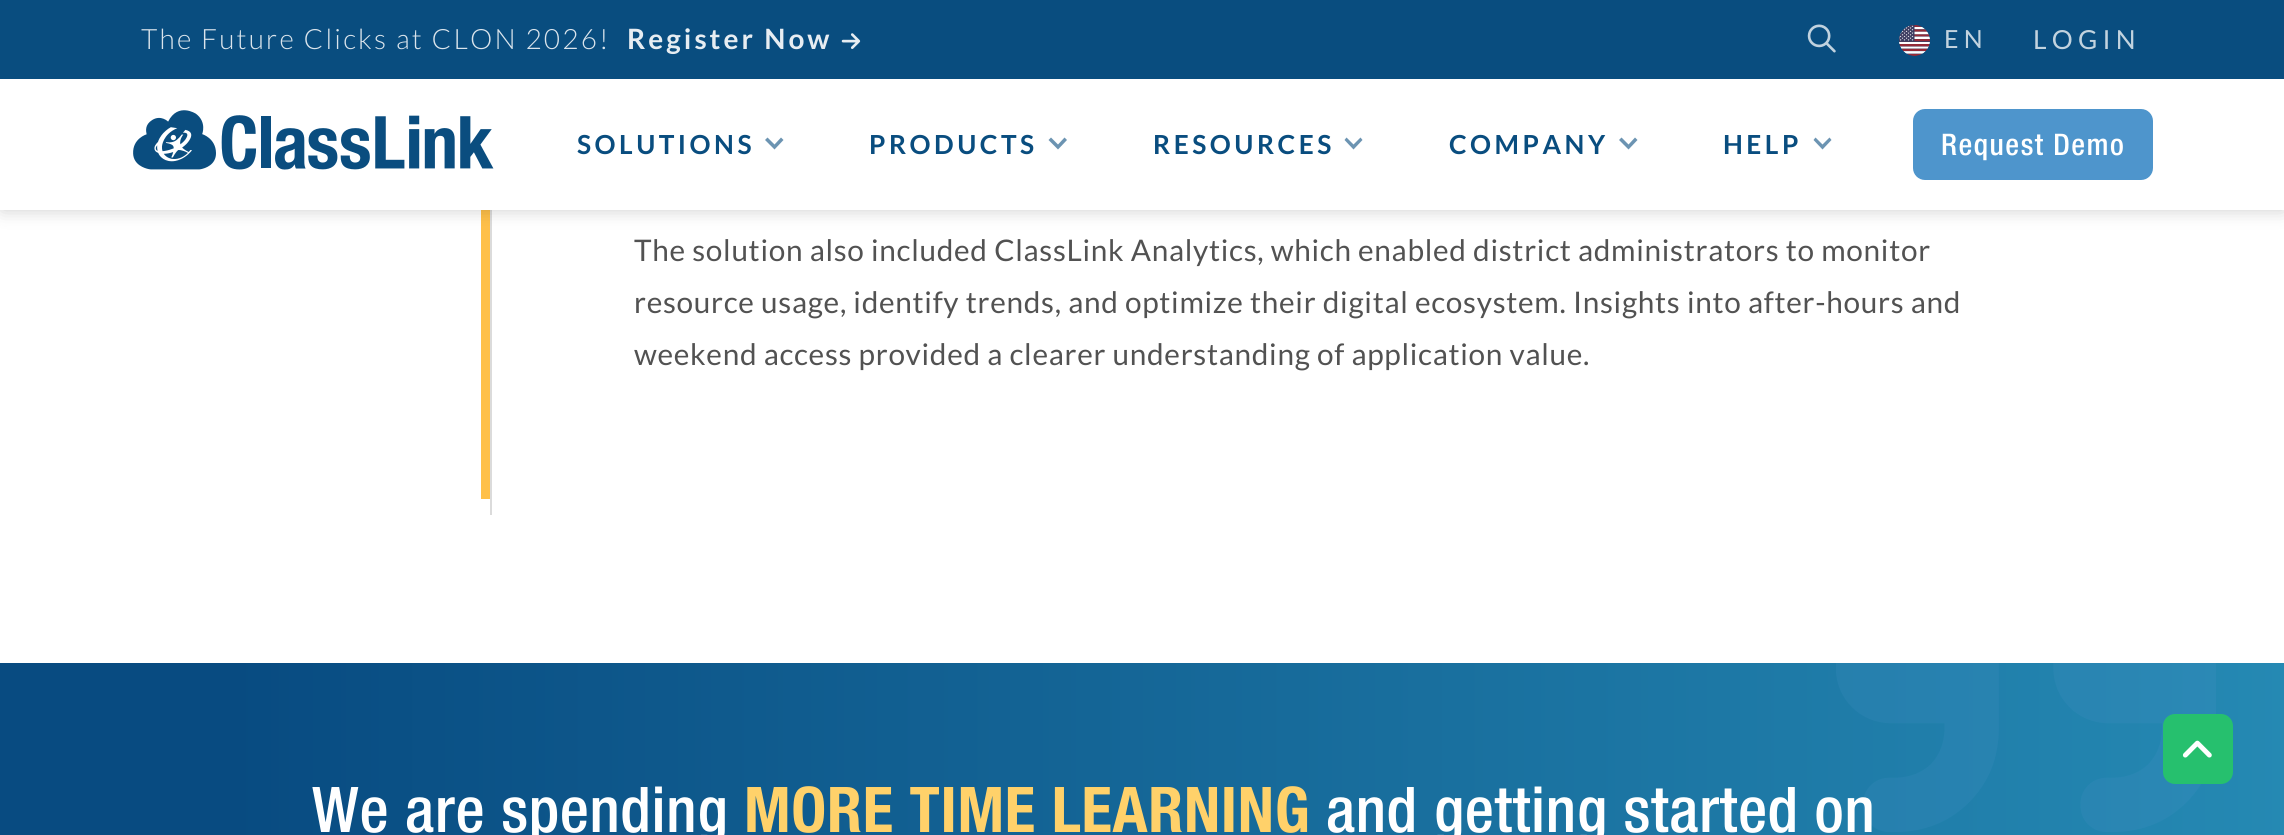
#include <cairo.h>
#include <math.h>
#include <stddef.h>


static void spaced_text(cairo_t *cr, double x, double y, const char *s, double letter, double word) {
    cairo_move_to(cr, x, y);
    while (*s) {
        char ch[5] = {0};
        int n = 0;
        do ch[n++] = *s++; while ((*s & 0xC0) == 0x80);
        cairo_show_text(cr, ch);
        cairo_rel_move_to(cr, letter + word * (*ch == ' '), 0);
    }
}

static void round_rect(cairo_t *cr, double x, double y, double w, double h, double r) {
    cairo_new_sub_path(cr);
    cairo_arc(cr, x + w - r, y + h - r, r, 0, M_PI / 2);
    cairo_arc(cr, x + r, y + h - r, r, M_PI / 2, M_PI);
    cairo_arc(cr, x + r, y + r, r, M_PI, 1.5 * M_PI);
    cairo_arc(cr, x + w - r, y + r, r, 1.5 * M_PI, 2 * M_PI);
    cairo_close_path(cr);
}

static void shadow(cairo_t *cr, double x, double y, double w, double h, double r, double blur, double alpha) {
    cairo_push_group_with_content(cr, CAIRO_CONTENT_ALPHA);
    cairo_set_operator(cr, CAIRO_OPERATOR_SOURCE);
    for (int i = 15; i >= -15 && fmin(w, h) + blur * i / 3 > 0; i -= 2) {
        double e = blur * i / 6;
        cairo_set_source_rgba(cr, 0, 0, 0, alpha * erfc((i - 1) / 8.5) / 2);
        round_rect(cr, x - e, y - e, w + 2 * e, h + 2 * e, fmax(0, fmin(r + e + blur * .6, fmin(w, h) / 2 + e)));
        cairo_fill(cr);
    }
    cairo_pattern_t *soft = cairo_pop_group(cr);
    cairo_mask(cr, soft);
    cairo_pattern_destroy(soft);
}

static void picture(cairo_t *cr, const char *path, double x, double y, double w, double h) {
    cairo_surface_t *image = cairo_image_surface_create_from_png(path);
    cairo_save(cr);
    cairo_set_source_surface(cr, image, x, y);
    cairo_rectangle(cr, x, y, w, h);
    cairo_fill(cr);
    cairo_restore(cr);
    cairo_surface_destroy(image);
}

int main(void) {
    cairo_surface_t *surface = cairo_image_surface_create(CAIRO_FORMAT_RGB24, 2284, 835);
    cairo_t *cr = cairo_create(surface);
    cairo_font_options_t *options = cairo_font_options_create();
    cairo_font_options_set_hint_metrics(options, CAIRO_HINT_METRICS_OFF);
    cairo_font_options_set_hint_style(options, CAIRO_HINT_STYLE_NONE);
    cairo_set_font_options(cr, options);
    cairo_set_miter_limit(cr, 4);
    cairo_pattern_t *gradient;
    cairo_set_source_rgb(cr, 1, 1, 1);
    cairo_paint(cr);
    cairo_set_source_rgb(cr, 0.859, 0.859, 0.859);
    cairo_rectangle(cr, 490, 210, 2, 305);
    cairo_fill(cr);
    cairo_set_source_rgb(cr, 1, 0.753, 0.286);
    cairo_rectangle(cr, 481, 210, 9, 289);
    cairo_fill(cr);
    cairo_set_source_rgb(cr, 0, 0, 0);
    shadow(cr, 2, 4, 2282, 206, 0, 9, 0.2);
    cairo_set_source_rgb(cr, 0.039, 0.302, 0.498);
    cairo_rectangle(cr, 0, 0, 2284, 79);
    cairo_fill(cr);
    cairo_select_font_face(cr, "Lato Light", CAIRO_FONT_SLANT_NORMAL, CAIRO_FONT_WEIGHT_NORMAL);
    cairo_set_font_size(cr, 28);
    cairo_set_source_rgb(cr, 0.855, 0.894, 0.925);
    spaced_text(cr, 141, 49, "The Future Clicks at CLON 2026!", 2.2, 0);
    cairo_select_font_face(cr, "Lato", CAIRO_FONT_SLANT_NORMAL, CAIRO_FONT_WEIGHT_BOLD);
    cairo_set_source_rgb(cr, 0.906, 0.929, 0.949);
    spaced_text(cr, 627, 49, "Register Now", 3, 0);
    picture(cr, "img1.png", 841, 33, 20, 16);
    picture(cr, "img2.png", 1807, 24, 29, 29);
    picture(cr, "img3.png", 1899, 25, 31, 31);
    cairo_select_font_face(cr, "Lato", CAIRO_FONT_SLANT_NORMAL, CAIRO_FONT_WEIGHT_NORMAL);
    cairo_set_font_size(cr, 25);
    cairo_set_source_rgb(cr, 0.761, 0.827, 0.875);
    spaced_text(cr, 1944, 48, "EN", 5.25, 0);
    cairo_set_font_size(cr, 26.25);
    spaced_text(cr, 2033, 49, "LOGIN", 5.25, 0);
    cairo_set_source_rgb(cr, 1, 1, 1);
    cairo_rectangle(cr, 0, 79, 2284, 131);
    cairo_fill(cr);
    picture(cr, "img4.png", 133, 110, 361, 60);
    cairo_select_font_face(cr, "Lato", CAIRO_FONT_SLANT_NORMAL, CAIRO_FONT_WEIGHT_BOLD);
    cairo_set_source_rgb(cr, 0.039, 0.302, 0.498);
    spaced_text(cr, 577, 154, "SOLUTIONS", 3.5, 0);
    cairo_set_source_rgb(cr, 0.424, 0.58, 0.698);
    cairo_new_path(cr);
    cairo_move_to(cr, 781, 137.5);
    cairo_line_to(cr, 774.5, 144.5);
    cairo_line_to(cr, 767.5, 137.5);
    cairo_line_to(cr, 765, 140);
    cairo_line_to(cr, 774.5, 149.5);
    cairo_line_to(cr, 783.5, 140);
    cairo_close_path(cr);
    cairo_fill(cr);
    cairo_set_source_rgb(cr, 0.039, 0.302, 0.498);
    spaced_text(cr, 869, 154, "PRODUCTS", 3.5, 0);
    cairo_set_source_rgb(cr, 0.424, 0.58, 0.698);
    cairo_new_path(cr);
    cairo_move_to(cr, 1064.5, 137.5);
    cairo_line_to(cr, 1058, 144.5);
    cairo_line_to(cr, 1051, 137.5);
    cairo_line_to(cr, 1048.5, 140);
    cairo_line_to(cr, 1058, 149.5);
    cairo_line_to(cr, 1067, 140);
    cairo_close_path(cr);
    cairo_fill(cr);
    cairo_set_source_rgb(cr, 0.039, 0.302, 0.498);
    spaced_text(cr, 1153, 154, "RESOURCES", 3.5, 0);
    cairo_set_source_rgb(cr, 0.424, 0.58, 0.698);
    cairo_new_path(cr);
    cairo_move_to(cr, 1360.5, 137.5);
    cairo_line_to(cr, 1353.5, 144.5);
    cairo_line_to(cr, 1346.5, 137.5);
    cairo_line_to(cr, 1344.5, 140);
    cairo_line_to(cr, 1353.5, 149.5);
    cairo_line_to(cr, 1362.5, 140);
    cairo_close_path(cr);
    cairo_fill(cr);
    cairo_set_source_rgb(cr, 0.039, 0.302, 0.498);
    spaced_text(cr, 1449, 154, "COMPANY", 3.5, 0);
    cairo_set_source_rgb(cr, 0.424, 0.58, 0.698);
    cairo_new_path(cr);
    cairo_move_to(cr, 1635, 137.5);
    cairo_line_to(cr, 1628.5, 144.5);
    cairo_line_to(cr, 1621.5, 137.5);
    cairo_line_to(cr, 1619, 140);
    cairo_line_to(cr, 1628.5, 149.5);
    cairo_line_to(cr, 1637.5, 140);
    cairo_close_path(cr);
    cairo_fill(cr);
    cairo_set_source_rgb(cr, 0.039, 0.302, 0.498);
    spaced_text(cr, 1723, 154, "HELP", 3.5, 0);
    cairo_set_source_rgb(cr, 0.424, 0.58, 0.698);
    cairo_new_path(cr);
    cairo_move_to(cr, 1829.5, 137.5);
    cairo_line_to(cr, 1822.5, 144.5);
    cairo_line_to(cr, 1815.5, 137.5);
    cairo_line_to(cr, 1813.5, 140);
    cairo_line_to(cr, 1822.5, 149.5);
    cairo_line_to(cr, 1831.5, 140);
    cairo_close_path(cr);
    cairo_fill(cr);
    cairo_set_source_rgb(cr, 0.306, 0.584, 0.8);
    round_rect(cr, 1913, 109, 240, 71, 12);
    cairo_fill(cr);
    cairo_select_font_face(cr, "Helvetica Neue Medium", CAIRO_FONT_SLANT_NORMAL, CAIRO_FONT_WEIGHT_NORMAL);
    cairo_set_font_size(cr, 29.75);
    cairo_set_source_rgb(cr, 1, 1, 1);
    spaced_text(cr, 1941, 155, "Request Demo", 1.5, 0);
    cairo_select_font_face(cr, "Lato", CAIRO_FONT_SLANT_NORMAL, CAIRO_FONT_WEIGHT_NORMAL);
    cairo_set_source_rgb(cr, 0.322, 0.322, 0.322);
    spaced_text(cr, 634, 261, "The solution also included ClassLink Analytics, which enabled district administrators to monitor", 0.7, 0);
    spaced_text(cr, 634, 313, "resource usage, identify trends, and optimize their digital ecosystem. Insights into after-hours and", 0.7, 0);
    spaced_text(cr, 634, 365, "weekend access provided a clearer understanding of application value.", 0.7, 0);
    gradient = cairo_pattern_create_linear(0, 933, 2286, 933);
    cairo_pattern_add_color_stop_rgba(gradient, 0.1, 0.031, 0.294, 0.506, 1);
    cairo_pattern_add_color_stop_rgba(gradient, 1, 0.145, 0.537, 0.702, 1);
    cairo_set_source(cr, gradient);
    cairo_pattern_destroy(gradient);
    cairo_rectangle(cr, 0, 663, 2284, 172);
    cairo_fill(cr);
    picture(cr, "img6.png", 1836, 663, 380, 169);
    cairo_set_source_rgb(cr, 0.149, 0.753, 0.431);
    round_rect(cr, 2163, 714, 70, 70, 12);
    cairo_fill(cr);
    picture(cr, "img5.png", 2182, 740, 30, 18);
    cairo_select_font_face(cr, "Helvetica Neue Medium", CAIRO_FONT_SLANT_NORMAL, CAIRO_FONT_WEIGHT_NORMAL);
    cairo_set_font_size(cr, 63);
    cairo_set_source_rgb(cr, 1, 1, 1);
    spaced_text(cr, 312, 832, "We are spending", 0.7, 0);
    cairo_select_font_face(cr, "Helvetica Neue", CAIRO_FONT_SLANT_NORMAL, CAIRO_FONT_WEIGHT_BOLD);
    cairo_set_source_rgb(cr, 1, 0.82, 0.416);
    spaced_text(cr, 744, 832, "MORE TIME LEARNING", 0.7, 0);
    cairo_select_font_face(cr, "Helvetica Neue Medium", CAIRO_FONT_SLANT_NORMAL, CAIRO_FONT_WEIGHT_NORMAL);
    cairo_set_source_rgb(cr, 1, 1, 1);
    spaced_text(cr, 1326, 832, "and getting started on", 0.7, 0);
    cairo_surface_write_to_png(surface, "page.png");
    cairo_font_options_destroy(options);
    cairo_destroy(cr);
    cairo_surface_destroy(surface);
    return 0;
}
